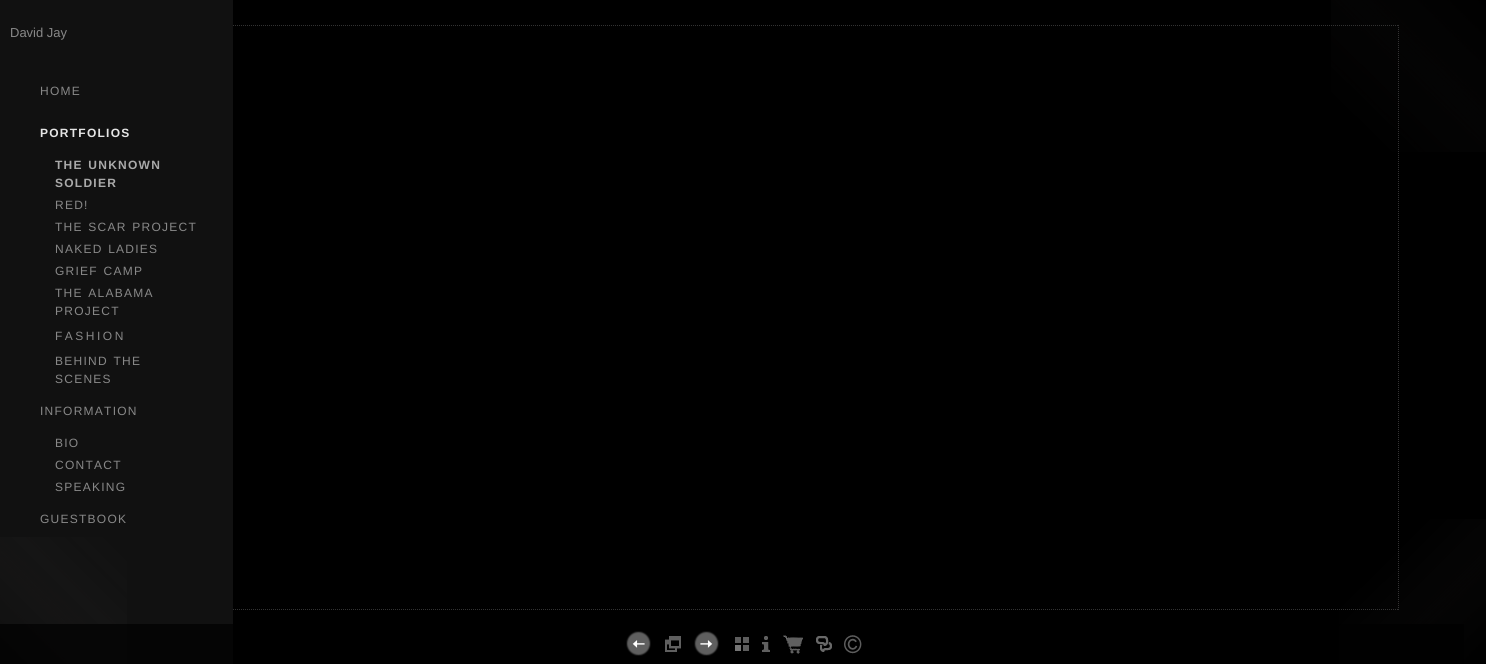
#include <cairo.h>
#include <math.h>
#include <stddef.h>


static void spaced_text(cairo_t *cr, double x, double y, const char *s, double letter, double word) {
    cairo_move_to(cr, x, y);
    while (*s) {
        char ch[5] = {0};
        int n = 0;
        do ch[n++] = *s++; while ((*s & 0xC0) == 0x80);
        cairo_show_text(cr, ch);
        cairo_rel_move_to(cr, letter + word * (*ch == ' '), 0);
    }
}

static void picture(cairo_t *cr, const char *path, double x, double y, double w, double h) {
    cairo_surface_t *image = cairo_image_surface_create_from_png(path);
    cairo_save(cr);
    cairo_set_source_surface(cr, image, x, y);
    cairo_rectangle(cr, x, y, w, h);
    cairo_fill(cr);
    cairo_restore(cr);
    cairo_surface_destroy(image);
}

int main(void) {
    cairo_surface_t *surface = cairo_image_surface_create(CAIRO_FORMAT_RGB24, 1486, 664);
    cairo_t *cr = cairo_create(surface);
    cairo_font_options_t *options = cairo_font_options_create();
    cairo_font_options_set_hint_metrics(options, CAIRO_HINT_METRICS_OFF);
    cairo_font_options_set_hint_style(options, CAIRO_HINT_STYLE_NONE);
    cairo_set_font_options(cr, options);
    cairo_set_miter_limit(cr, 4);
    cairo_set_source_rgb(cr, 0, 0, 0);
    cairo_paint(cr);
    cairo_new_path(cr);
    cairo_move_to(cr, 89, 25.5);
    cairo_line_to(cr, 1399, 25.5);
    cairo_set_source_rgb(cr, 0.2, 0.2, 0.2);
    cairo_set_line_width(cr, 1);
    cairo_set_dash(cr, (double[]){1, 1}, 2, 0);
    cairo_stroke(cr);
    cairo_new_path(cr);
    cairo_move_to(cr, 1398.5, 25);
    cairo_line_to(cr, 1398.5, 610);
    cairo_stroke(cr);
    cairo_new_path(cr);
    cairo_move_to(cr, 89, 609.5);
    cairo_line_to(cr, 1399, 609.5);
    cairo_stroke(cr);
    picture(cr, "img1.png", 1331, 0, 155, 152);
    picture(cr, "img2.png", 1339, 519, 147, 145);
    cairo_set_source_rgb(cr, 0.067, 0.067, 0.067);
    cairo_rectangle(cr, 0, 0, 233, 664);
    cairo_fill(cr);
    cairo_select_font_face(cr, "Liberation Sans", CAIRO_FONT_SLANT_NORMAL, CAIRO_FONT_WEIGHT_NORMAL);
    cairo_set_font_size(cr, 13);
    cairo_set_source_rgb(cr, 0.533, 0.533, 0.533);
    cairo_move_to(cr, 10, 37);
    cairo_show_text(cr, "David Jay");
    cairo_set_font_size(cr, 12);
    spaced_text(cr, 40, 95, "HOME", 1.25, 0);
    cairo_select_font_face(cr, "Liberation Sans", CAIRO_FONT_SLANT_NORMAL, CAIRO_FONT_WEIGHT_BOLD);
    cairo_set_source_rgb(cr, 0.898, 0.898, 0.898);
    spaced_text(cr, 40, 137, "PORTFOLIOS", 1.25, 0);
    cairo_set_source_rgb(cr, 0.667, 0.667, 0.667);
    spaced_text(cr, 55, 169, "THE UNKNOWN", 1.25, 1);
    spaced_text(cr, 55, 187, "SOLDIER", 1.25, 0);
    cairo_select_font_face(cr, "Liberation Sans", CAIRO_FONT_SLANT_NORMAL, CAIRO_FONT_WEIGHT_NORMAL);
    cairo_set_source_rgb(cr, 0.533, 0.533, 0.533);
    spaced_text(cr, 55, 209, "RED!", 1.25, 0);
    spaced_text(cr, 55, 231, "THE SCAR PROJECT", 1.25, 1);
    spaced_text(cr, 55, 253, "NAKED LADIES", 1.25, 1);
    spaced_text(cr, 55, 275, "GRIEF CAMP", 1.25, 1);
    spaced_text(cr, 55, 297, "THE ALABAMA", 1.25, 1);
    spaced_text(cr, 55, 315, "PROJECT", 1.25, 0);
    spaced_text(cr, 55, 340, "FASHION", 2.5, 0);
    spaced_text(cr, 55, 365, "BEHIND THE", 1.25, 1);
    spaced_text(cr, 55, 383, "SCENES", 1.25, 0);
    spaced_text(cr, 40, 415, "INFORMATION", 1.25, 0);
    spaced_text(cr, 55, 447, "BIO", 1.25, 0);
    spaced_text(cr, 55, 469, "CONTACT", 1.25, 0);
    spaced_text(cr, 55, 491, "SPEAKING", 1.25, 0);
    spaced_text(cr, 40, 523, "GUESTBOOK", 1.25, 0);
    picture(cr, "img3.png", 0, 537, 127, 127);
    cairo_set_source_rgba(cr, 0, 0, 0, 0.7);
    cairo_rectangle(cr, 0, 624, 1464, 40);
    cairo_fill(cr);
    picture(cr, "img4.png", 626, 631, 25, 25);
    picture(cr, "img5.png", 665, 636, 16, 16);
    picture(cr, "img6.png", 665, 639, 16, 10);
    picture(cr, "img7.png", 694, 631, 25, 25);
    picture(cr, "img8.png", 735, 637, 14, 14);
    picture(cr, "img9.png", 762, 636, 8, 16);
    picture(cr, "img10.png", 783, 635, 20, 19);
    picture(cr, "img11.png", 816, 636, 16, 16);
    picture(cr, "img12.png", 844, 635, 18, 19);
    cairo_surface_write_to_png(surface, "page.png");
    cairo_font_options_destroy(options);
    cairo_destroy(cr);
    cairo_surface_destroy(surface);
    return 0;
}
